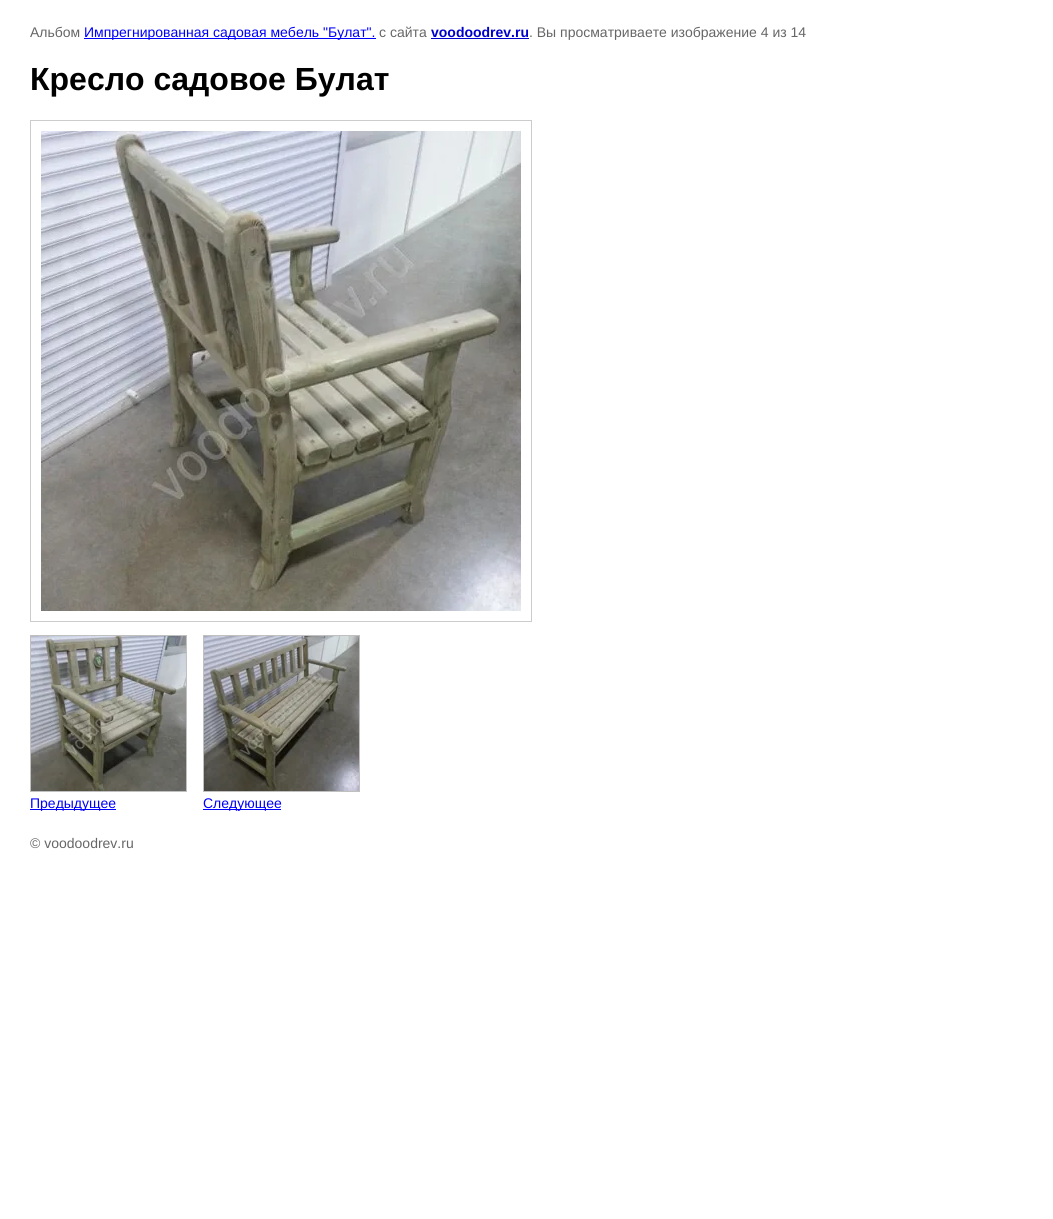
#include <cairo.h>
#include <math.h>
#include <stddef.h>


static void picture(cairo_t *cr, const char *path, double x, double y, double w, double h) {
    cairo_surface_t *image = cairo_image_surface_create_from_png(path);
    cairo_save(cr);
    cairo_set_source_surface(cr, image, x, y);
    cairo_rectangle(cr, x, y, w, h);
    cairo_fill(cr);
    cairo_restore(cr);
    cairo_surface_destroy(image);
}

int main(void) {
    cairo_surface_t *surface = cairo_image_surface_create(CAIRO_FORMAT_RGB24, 1053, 1219);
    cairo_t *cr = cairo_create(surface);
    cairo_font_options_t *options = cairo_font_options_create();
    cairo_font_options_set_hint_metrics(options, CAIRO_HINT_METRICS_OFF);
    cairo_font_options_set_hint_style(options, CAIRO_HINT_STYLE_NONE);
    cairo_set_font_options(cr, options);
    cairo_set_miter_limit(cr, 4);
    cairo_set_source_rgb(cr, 1, 1, 1);
    cairo_paint(cr);
    cairo_select_font_face(cr, "Liberation Sans", CAIRO_FONT_SLANT_NORMAL, CAIRO_FONT_WEIGHT_NORMAL);
    cairo_set_font_size(cr, 14);
    cairo_set_source_rgb(cr, 0.4, 0.4, 0.4);
    cairo_move_to(cr, 30, 37);
    cairo_show_text(cr, "Альбом");
    cairo_set_source_rgb(cr, 0, 0, 1);
    cairo_rectangle(cr, 84, 38, 292, 1);
    cairo_fill(cr);
    cairo_move_to(cr, 84, 37);
    cairo_show_text(cr, "Импрегнированная садовая мебель \"Булат\".");
    cairo_set_source_rgb(cr, 0.4, 0.4, 0.4);
    cairo_move_to(cr, 379, 37);
    cairo_show_text(cr, "с сайта");
    cairo_select_font_face(cr, "Liberation Sans", CAIRO_FONT_SLANT_NORMAL, CAIRO_FONT_WEIGHT_BOLD);
    cairo_set_source_rgb(cr, 0, 0, 0.8);
    cairo_move_to(cr, 431, 37);
    cairo_show_text(cr, "voodoodrev.ru");
    cairo_rectangle(cr, 431, 38, 98, 1);
    cairo_fill(cr);
    cairo_select_font_face(cr, "Liberation Sans", CAIRO_FONT_SLANT_NORMAL, CAIRO_FONT_WEIGHT_NORMAL);
    cairo_set_source_rgb(cr, 0.4, 0.4, 0.4);
    cairo_move_to(cr, 529, 37);
    cairo_show_text(cr, ". Вы просматриваете изображение 4 из 14");
    cairo_select_font_face(cr, "Liberation Sans", CAIRO_FONT_SLANT_NORMAL, CAIRO_FONT_WEIGHT_BOLD);
    cairo_set_font_size(cr, 32);
    cairo_set_source_rgb(cr, 0, 0, 0);
    cairo_move_to(cr, 30, 90);
    cairo_show_text(cr, "Кресло садовое Булат");
    cairo_rectangle(cr, 30.5, 120.5, 501, 501);
    cairo_set_source_rgb(cr, 0.8, 0.8, 0.8);
    cairo_set_line_width(cr, 1);
    cairo_stroke(cr);
    picture(cr, "img1.png", 41, 131, 480, 480);
    cairo_rectangle(cr, 30.5, 635.5, 156, 156);
    cairo_set_source_rgb(cr, 0.753, 0.753, 0.753);
    cairo_stroke(cr);
    picture(cr, "img2.png", 31, 636, 155, 155);
    cairo_set_source_rgb(cr, 0, 0, 1);
    cairo_rectangle(cr, 30, 809, 86, 1);
    cairo_fill(cr);
    cairo_select_font_face(cr, "Liberation Sans", CAIRO_FONT_SLANT_NORMAL, CAIRO_FONT_WEIGHT_NORMAL);
    cairo_set_font_size(cr, 14);
    cairo_move_to(cr, 30, 808);
    cairo_show_text(cr, "Предыдущее");
    cairo_rectangle(cr, 203.5, 635.5, 156, 156);
    cairo_set_source_rgb(cr, 0.753, 0.753, 0.753);
    cairo_stroke(cr);
    picture(cr, "img3.png", 204, 636, 155, 155);
    cairo_set_source_rgb(cr, 0, 0, 1);
    cairo_rectangle(cr, 203, 809, 78, 1);
    cairo_fill(cr);
    cairo_move_to(cr, 203, 808);
    cairo_show_text(cr, "Следующее");
    cairo_set_source_rgb(cr, 0.4, 0.4, 0.4);
    cairo_move_to(cr, 30, 848);
    cairo_show_text(cr, "© voodoodrev.ru");
    cairo_surface_write_to_png(surface, "page.png");
    cairo_font_options_destroy(options);
    cairo_destroy(cr);
    cairo_surface_destroy(surface);
    return 0;
}
